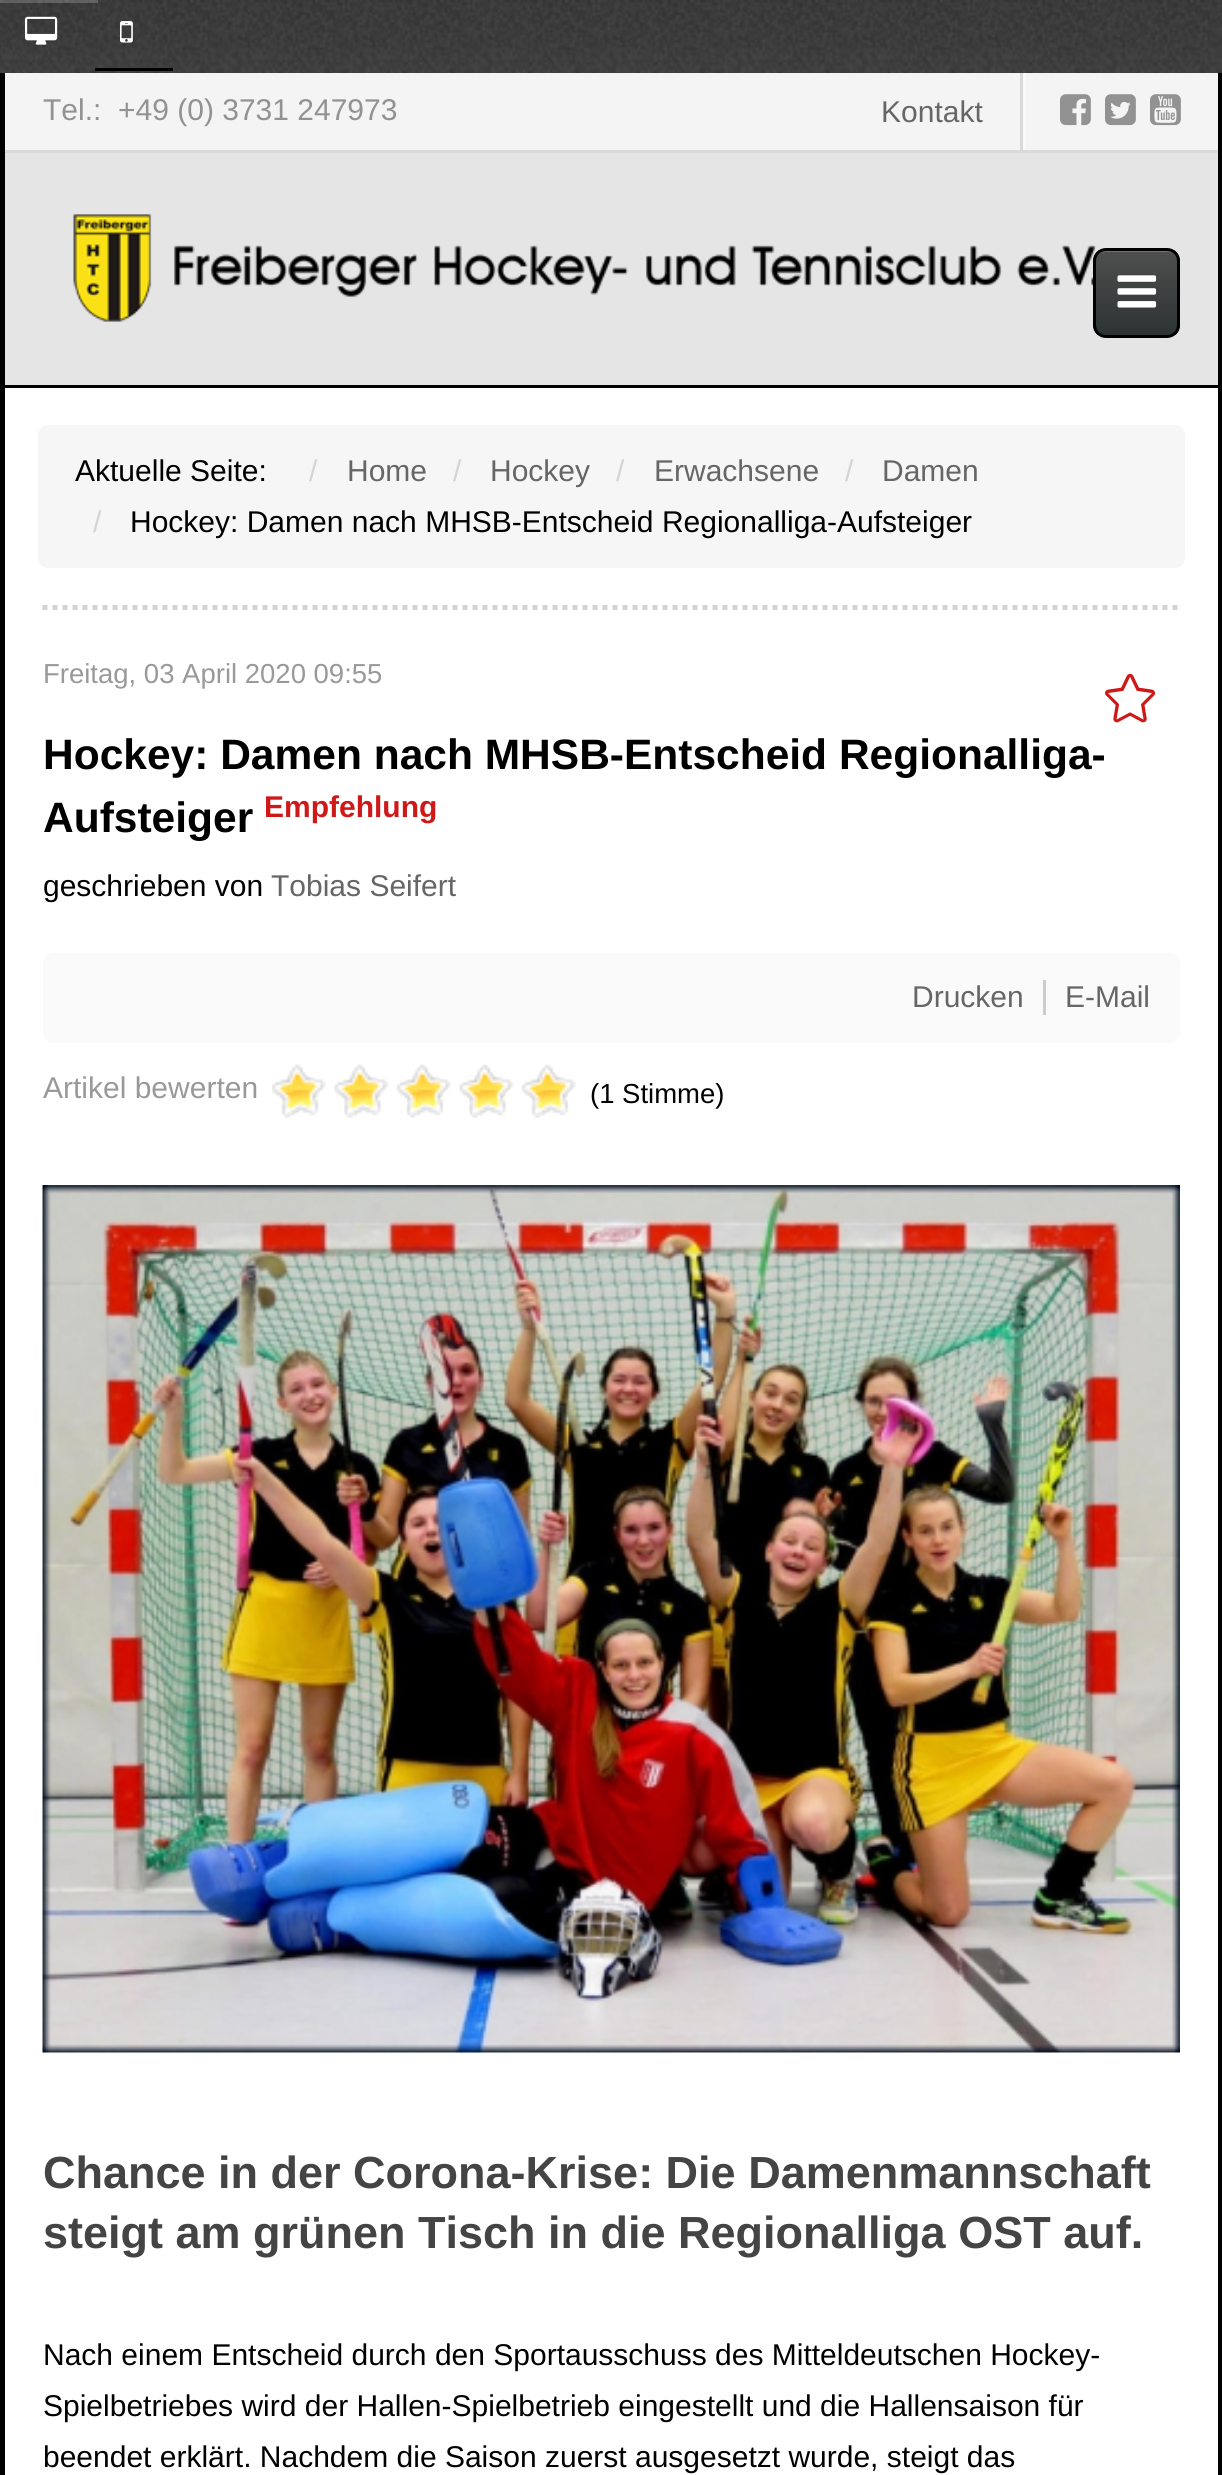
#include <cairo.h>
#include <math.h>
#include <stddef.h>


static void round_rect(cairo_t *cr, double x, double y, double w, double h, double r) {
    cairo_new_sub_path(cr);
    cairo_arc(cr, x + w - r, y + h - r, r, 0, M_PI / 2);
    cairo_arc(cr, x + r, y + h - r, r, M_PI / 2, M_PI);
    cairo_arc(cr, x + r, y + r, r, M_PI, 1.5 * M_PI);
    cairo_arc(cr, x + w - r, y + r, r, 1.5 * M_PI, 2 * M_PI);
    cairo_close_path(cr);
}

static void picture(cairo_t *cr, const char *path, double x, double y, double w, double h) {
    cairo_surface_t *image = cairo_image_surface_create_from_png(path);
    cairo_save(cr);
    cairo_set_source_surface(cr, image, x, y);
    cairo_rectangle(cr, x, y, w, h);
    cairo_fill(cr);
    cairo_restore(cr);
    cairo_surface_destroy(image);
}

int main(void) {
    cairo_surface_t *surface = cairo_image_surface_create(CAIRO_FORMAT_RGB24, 1222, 2475);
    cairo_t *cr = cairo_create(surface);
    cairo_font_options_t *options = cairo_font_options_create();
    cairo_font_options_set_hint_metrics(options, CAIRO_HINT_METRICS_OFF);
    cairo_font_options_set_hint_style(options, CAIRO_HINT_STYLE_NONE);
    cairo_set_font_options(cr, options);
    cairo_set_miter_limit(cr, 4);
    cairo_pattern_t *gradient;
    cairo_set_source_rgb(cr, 1, 1, 1);
    cairo_paint(cr);
    picture(cr, "img1.png", 0, 0, 1222, 73);
    cairo_set_source_rgba(cr, 1, 1, 1, 0.2);
    cairo_rectangle(cr, 0, 0, 98, 3);
    cairo_fill(cr);
    picture(cr, "img2.png", 25, 16, 33, 29);
    cairo_set_source_rgb(cr, 0, 0, 0);
    cairo_rectangle(cr, 95, 68, 78, 3);
    cairo_fill(cr);
    picture(cr, "img3.png", 120, 21, 13, 22);
    cairo_rectangle(cr, 1218, 73, 4, 2402);
    cairo_fill(cr);
    cairo_rectangle(cr, 0, 73, 5, 2402);
    cairo_fill(cr);
    cairo_set_source_rgb(cr, 0.957, 0.957, 0.957);
    cairo_rectangle(cr, 5, 73, 1213, 77);
    cairo_fill(cr);
    cairo_set_source_rgb(cr, 0.855, 0.855, 0.855);
    cairo_rectangle(cr, 5, 150, 1213, 3);
    cairo_fill(cr);
    cairo_select_font_face(cr, "Liberation Sans", CAIRO_FONT_SLANT_NORMAL, CAIRO_FONT_WEIGHT_NORMAL);
    cairo_set_font_size(cr, 30);
    cairo_set_source_rgb(cr, 0.573, 0.573, 0.573);
    cairo_move_to(cr, 43, 120);
    cairo_show_text(cr, "Tel.:  +49 (0) 3731 247973");
    cairo_set_source_rgb(cr, 0.4, 0.4, 0.4);
    cairo_move_to(cr, 881, 122);
    cairo_show_text(cr, "Kontakt");
    cairo_set_source_rgb(cr, 0.976, 0.976, 0.976);
    cairo_rectangle(cr, 1023, 73, 3, 77);
    cairo_fill(cr);
    cairo_set_source_rgb(cr, 0.855, 0.855, 0.855);
    cairo_rectangle(cr, 1020, 73, 3, 77);
    cairo_fill(cr);
    picture(cr, "img4.png", 1060, 94, 31, 32);
    picture(cr, "img5.png", 1105, 94, 31, 32);
    picture(cr, "img6.png", 1150, 94, 31, 32);
    cairo_set_source_rgb(cr, 0.898, 0.898, 0.898);
    cairo_rectangle(cr, 5, 153, 1213, 232);
    cairo_fill(cr);
    picture(cr, "img7.png", 73, 214, 1024, 108);
    cairo_set_source_rgb(cr, 0, 0, 0);
    cairo_rectangle(cr, 5, 385, 1213, 3);
    cairo_fill(cr);
    cairo_save(cr);
    round_rect(cr, 1093, 248, 87, 90, 13);
    cairo_clip(cr);
    gradient = cairo_pattern_create_linear(1136, 250, 1136, 335);
    cairo_pattern_add_color_stop_rgba(gradient, 0, 0.31, 0.31, 0.31, 1);
    cairo_pattern_add_color_stop_rgba(gradient, 1, 0.176, 0.2, 0.2, 1);
    cairo_set_source(cr, gradient);
    cairo_pattern_destroy(gradient);
    cairo_rectangle(cr, 1093, 250, 87, 85);
    cairo_fill(cr);
    cairo_restore(cr);
    cairo_set_source_rgba(cr, 1, 1, 1, 0.2);
    cairo_new_path(cr);
    cairo_move_to(cr, 1105, 252);
    cairo_line_to(cr, 1168, 252);
    cairo_curve_to(cr, 1173, 252, 1178, 257, 1178, 262);
    cairo_curve_to(cr, 1178, 248, 1168, 250, 1158, 250);
    cairo_line_to(cr, 1116, 250);
    cairo_curve_to(cr, 1105, 250, 1095, 248, 1095, 262);
    cairo_curve_to(cr, 1095, 257, 1099, 252, 1105, 252);
    cairo_close_path(cr);
    cairo_fill(cr);
    round_rect(cr, 1094.5, 249.5, 84, 87, 11.5);
    cairo_set_source_rgb(cr, 0, 0, 0);
    cairo_set_line_width(cr, 3);
    cairo_stroke(cr);
    picture(cr, "img8.png", 1117, 275, 40, 33);
    cairo_new_path(cr);
    cairo_move_to(cr, 42.5, 607.5);
    cairo_line_to(cr, 1180, 607.5);
    cairo_set_source_rgb(cr, 0.827, 0.827, 0.827);
    cairo_set_line_width(cr, 5);
    cairo_set_dash(cr, (double[]){5, 5}, 2, 0);
    cairo_stroke(cr);
    cairo_set_source_rgb(cr, 0.961, 0.961, 0.961);
    round_rect(cr, 38, 425, 1147, 143, 10);
    cairo_fill(cr);
    cairo_set_source_rgb(cr, 0, 0, 0);
    cairo_move_to(cr, 75, 481);
    cairo_show_text(cr, "Aktuelle Seite:");
    cairo_set_source_rgb(cr, 0.831, 0.831, 0.831);
    cairo_move_to(cr, 309, 481);
    cairo_show_text(cr, "/");
    cairo_set_source_rgb(cr, 0.4, 0.4, 0.4);
    cairo_move_to(cr, 347, 481);
    cairo_show_text(cr, "Home");
    cairo_set_source_rgb(cr, 0.831, 0.831, 0.831);
    cairo_move_to(cr, 453, 481);
    cairo_show_text(cr, "/");
    cairo_set_source_rgb(cr, 0.4, 0.4, 0.4);
    cairo_move_to(cr, 490, 481);
    cairo_show_text(cr, "Hockey");
    cairo_set_source_rgb(cr, 0.831, 0.831, 0.831);
    cairo_move_to(cr, 616, 481);
    cairo_show_text(cr, "/");
    cairo_set_source_rgb(cr, 0.4, 0.4, 0.4);
    cairo_move_to(cr, 654, 481);
    cairo_show_text(cr, "Erwachsene");
    cairo_set_source_rgb(cr, 0.831, 0.831, 0.831);
    cairo_move_to(cr, 845, 481);
    cairo_show_text(cr, "/");
    cairo_set_source_rgb(cr, 0.4, 0.4, 0.4);
    cairo_move_to(cr, 882, 481);
    cairo_show_text(cr, "Damen");
    cairo_set_source_rgb(cr, 0.831, 0.831, 0.831);
    cairo_move_to(cr, 93, 532);
    cairo_show_text(cr, "/");
    cairo_set_source_rgb(cr, 0, 0, 0);
    cairo_move_to(cr, 130, 532);
    cairo_show_text(cr, "Hockey: Damen nach MHSB-Entscheid Regionalliga-Aufsteiger");
    cairo_set_font_size(cr, 27.5);
    cairo_set_source_rgb(cr, 0.6, 0.6, 0.6);
    cairo_move_to(cr, 43, 683);
    cairo_show_text(cr, "Freitag, 03 April 2020 09:55");
    cairo_select_font_face(cr, "Liberation Sans", CAIRO_FONT_SLANT_NORMAL, CAIRO_FONT_WEIGHT_BOLD);
    cairo_set_font_size(cr, 42.5);
    cairo_set_source_rgb(cr, 0, 0, 0);
    cairo_move_to(cr, 43, 769);
    cairo_show_text(cr, "Hockey: Damen nach MHSB-Entscheid Regionalliga-");
    cairo_move_to(cr, 43, 832);
    cairo_show_text(cr, "Aufsteiger");
    cairo_set_font_size(cr, 30);
    cairo_set_source_rgb(cr, 0.812, 0.098, 0.098);
    cairo_move_to(cr, 264, 817);
    cairo_show_text(cr, "Empfehlung");
    cairo_select_font_face(cr, "Liberation Sans", CAIRO_FONT_SLANT_NORMAL, CAIRO_FONT_WEIGHT_NORMAL);
    cairo_set_source_rgb(cr, 0, 0, 0);
    cairo_move_to(cr, 43, 896);
    cairo_show_text(cr, "geschrieben von");
    cairo_set_source_rgb(cr, 0.4, 0.4, 0.4);
    cairo_move_to(cr, 271, 896);
    cairo_show_text(cr, "Tobias Seifert");
    picture(cr, "img9.png", 1105, 673, 51, 50);
    cairo_set_source_rgb(cr, 0.98, 0.98, 0.98);
    round_rect(cr, 43, 953, 1137, 90, 10);
    cairo_fill(cr);
    cairo_set_source_rgb(cr, 0.4, 0.4, 0.4);
    cairo_move_to(cr, 912, 1007);
    cairo_show_text(cr, "Drucken");
    cairo_move_to(cr, 1065, 1007);
    cairo_show_text(cr, "E-Mail");
    cairo_set_source_rgb(cr, 0.8, 0.8, 0.8);
    cairo_rectangle(cr, 1043, 980, 3, 35);
    cairo_fill(cr);
    cairo_set_source_rgb(cr, 0.6, 0.6, 0.6);
    cairo_move_to(cr, 43, 1098);
    cairo_show_text(cr, "Artikel bewerten");
    picture(cr, "img10.png", 272, 1067, 304, 51);
    picture(cr, "img11.png", 272, 1064, 304, 51);
    cairo_set_font_size(cr, 27.5);
    cairo_set_source_rgb(cr, 0, 0, 0);
    cairo_move_to(cr, 590, 1103);
    cairo_show_text(cr, "(1 Stimme)");
    picture(cr, "img12.png", 42, 1185, 1138, 868);
    cairo_select_font_face(cr, "Liberation Sans", CAIRO_FONT_SLANT_NORMAL, CAIRO_FONT_WEIGHT_BOLD);
    cairo_set_font_size(cr, 45);
    cairo_set_source_rgb(cr, 0.267, 0.267, 0.267);
    cairo_move_to(cr, 43, 2188);
    cairo_show_text(cr, "Chance in der Corona-Krise: Die Damenmannschaft");
    cairo_move_to(cr, 43, 2248);
    cairo_show_text(cr, "steigt am grünen Tisch in die Regionalliga OST auf.");
    cairo_select_font_face(cr, "Liberation Sans", CAIRO_FONT_SLANT_NORMAL, CAIRO_FONT_WEIGHT_NORMAL);
    cairo_set_font_size(cr, 30);
    cairo_set_source_rgb(cr, 0, 0, 0);
    cairo_move_to(cr, 43, 2365);
    cairo_show_text(cr, "Nach einem Entscheid durch den Sportausschuss des Mitteldeutschen Hockey-");
    cairo_move_to(cr, 43, 2416);
    cairo_show_text(cr, "Spielbetriebes wird der Hallen-Spielbetrieb eingestellt und die Hallensaison für");
    cairo_move_to(cr, 43, 2467);
    cairo_show_text(cr, "beendet erklärt. Nachdem die Saison zuerst ausgesetzt wurde, steigt das");
    cairo_surface_write_to_png(surface, "page.png");
    cairo_font_options_destroy(options);
    cairo_destroy(cr);
    cairo_surface_destroy(surface);
    return 0;
}
